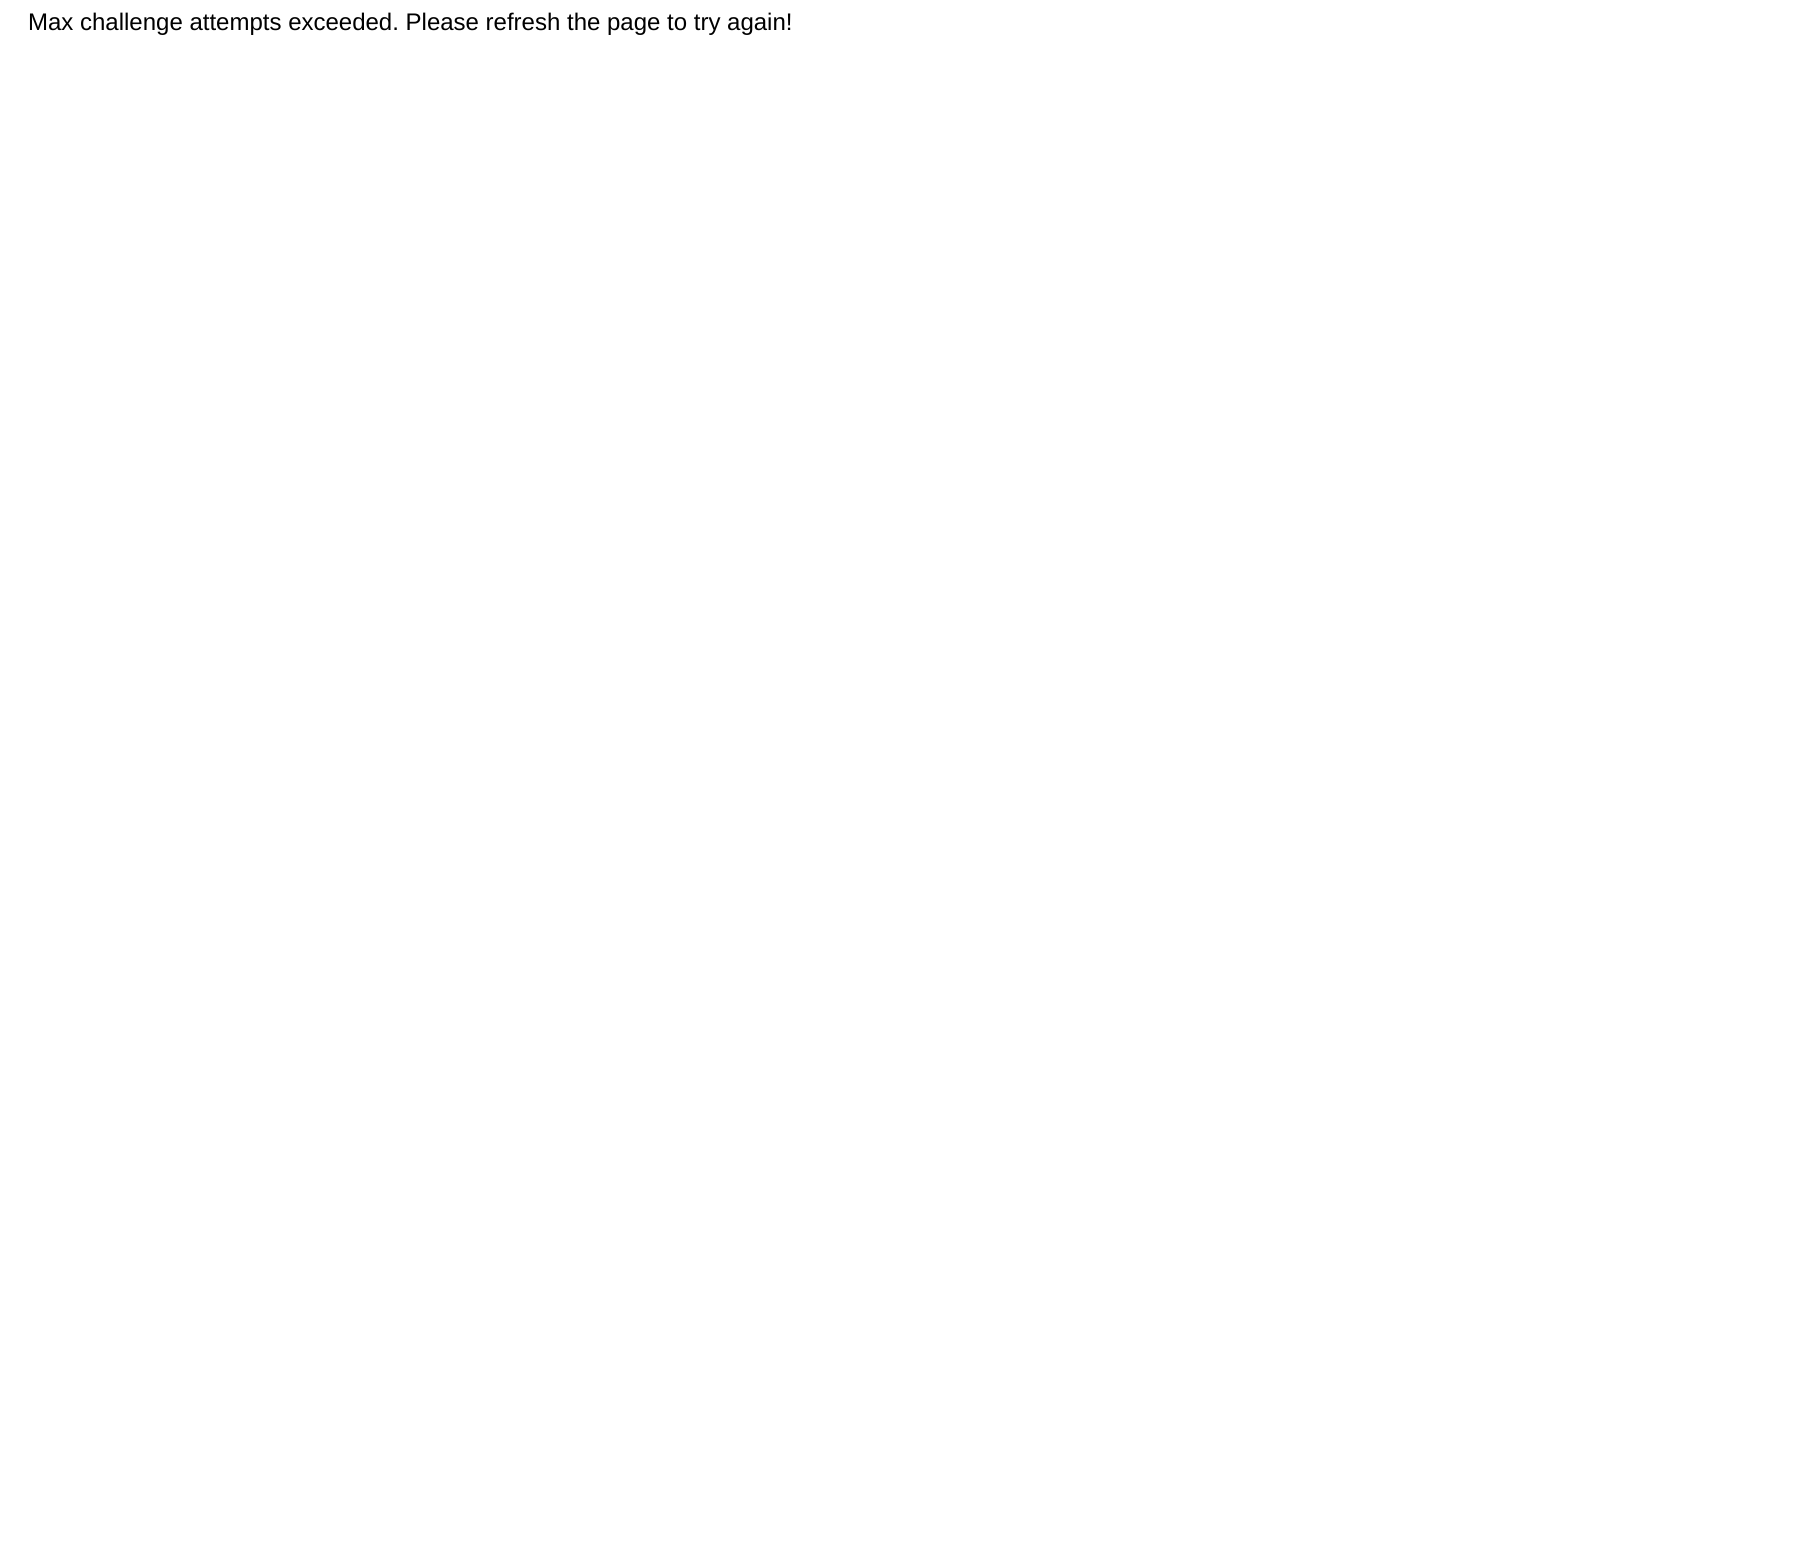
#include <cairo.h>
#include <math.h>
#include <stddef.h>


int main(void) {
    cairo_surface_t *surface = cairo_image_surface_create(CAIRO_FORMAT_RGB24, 1820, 1552);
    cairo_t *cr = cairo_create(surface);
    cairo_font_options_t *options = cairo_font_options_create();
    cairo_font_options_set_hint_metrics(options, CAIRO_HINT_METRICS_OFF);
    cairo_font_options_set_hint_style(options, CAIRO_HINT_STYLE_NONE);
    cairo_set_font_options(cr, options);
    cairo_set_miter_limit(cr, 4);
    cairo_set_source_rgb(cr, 1, 1, 1);
    cairo_paint(cr);
    cairo_select_font_face(cr, "Liberation Sans", CAIRO_FONT_SLANT_NORMAL, CAIRO_FONT_WEIGHT_NORMAL);
    cairo_set_font_size(cr, 24);
    cairo_set_source_rgb(cr, 0, 0, 0);
    cairo_move_to(cr, 28, 30);
    cairo_show_text(cr, "Max challenge attempts exceeded. Please refresh the page to try again!");
    cairo_surface_write_to_png(surface, "page.png");
    cairo_font_options_destroy(options);
    cairo_destroy(cr);
    cairo_surface_destroy(surface);
    return 0;
}
